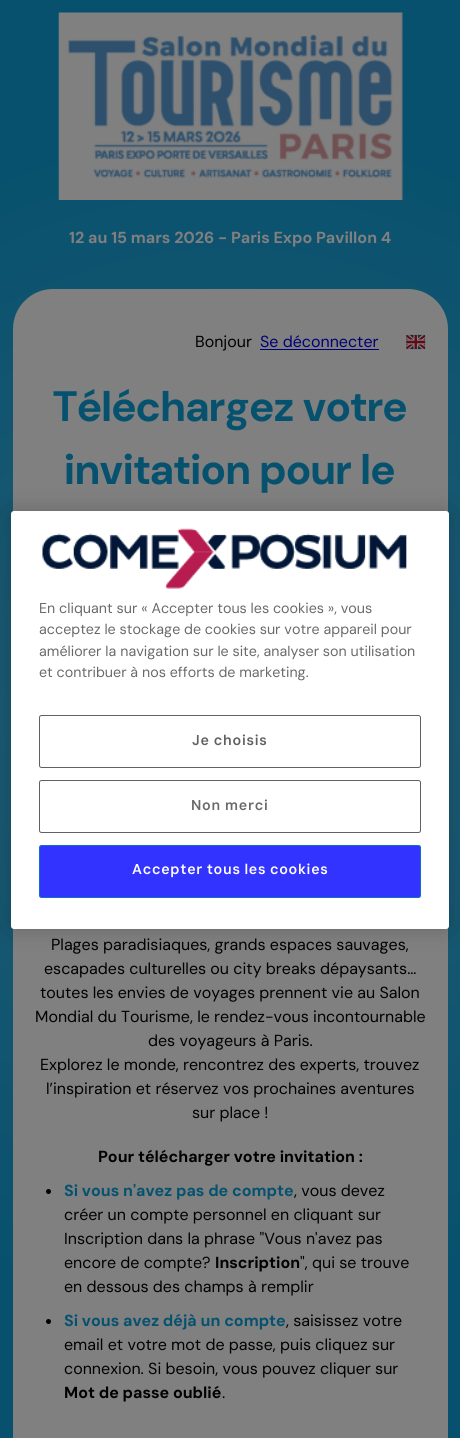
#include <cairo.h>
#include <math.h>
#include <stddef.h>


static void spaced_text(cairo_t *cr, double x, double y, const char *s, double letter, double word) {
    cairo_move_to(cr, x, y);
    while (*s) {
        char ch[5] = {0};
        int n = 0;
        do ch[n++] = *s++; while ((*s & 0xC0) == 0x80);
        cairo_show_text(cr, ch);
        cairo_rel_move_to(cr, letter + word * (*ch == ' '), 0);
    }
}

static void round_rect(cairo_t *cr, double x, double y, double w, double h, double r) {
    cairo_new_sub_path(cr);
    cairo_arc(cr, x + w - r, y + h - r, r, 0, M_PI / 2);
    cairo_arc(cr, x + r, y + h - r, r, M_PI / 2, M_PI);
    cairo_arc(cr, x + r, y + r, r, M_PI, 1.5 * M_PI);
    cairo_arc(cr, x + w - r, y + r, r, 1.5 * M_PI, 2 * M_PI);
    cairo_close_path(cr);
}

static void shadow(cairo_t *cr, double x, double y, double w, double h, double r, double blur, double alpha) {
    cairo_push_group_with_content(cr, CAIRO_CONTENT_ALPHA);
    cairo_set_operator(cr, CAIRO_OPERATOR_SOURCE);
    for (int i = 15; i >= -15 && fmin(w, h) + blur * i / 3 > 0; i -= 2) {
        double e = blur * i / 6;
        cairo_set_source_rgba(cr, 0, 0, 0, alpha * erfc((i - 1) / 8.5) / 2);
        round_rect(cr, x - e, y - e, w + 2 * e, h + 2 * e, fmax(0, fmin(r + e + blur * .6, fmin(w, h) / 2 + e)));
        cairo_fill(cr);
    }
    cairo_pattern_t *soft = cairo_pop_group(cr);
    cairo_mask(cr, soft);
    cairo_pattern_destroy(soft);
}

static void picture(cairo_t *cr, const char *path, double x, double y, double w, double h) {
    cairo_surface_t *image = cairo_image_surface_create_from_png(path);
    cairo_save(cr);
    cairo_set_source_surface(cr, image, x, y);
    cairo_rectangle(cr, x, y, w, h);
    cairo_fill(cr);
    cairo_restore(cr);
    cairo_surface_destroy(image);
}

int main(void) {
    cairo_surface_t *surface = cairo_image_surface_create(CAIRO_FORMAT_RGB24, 460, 1438);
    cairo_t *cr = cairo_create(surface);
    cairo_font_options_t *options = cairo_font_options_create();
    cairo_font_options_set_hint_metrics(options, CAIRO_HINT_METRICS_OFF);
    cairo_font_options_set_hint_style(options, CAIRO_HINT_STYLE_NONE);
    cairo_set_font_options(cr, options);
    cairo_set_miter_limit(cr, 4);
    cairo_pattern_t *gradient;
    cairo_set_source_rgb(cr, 1, 1, 1);
    cairo_paint(cr);
    gradient = cairo_pattern_create_radial(230, 719, 0, 230, 719, 755);
    cairo_pattern_add_color_stop_rgba(gradient, 0, 0.145, 0.361, 0.451, 1);
    cairo_pattern_add_color_stop_rgba(gradient, 0.8, 0.027, 0.318, 0.431, 1);
    cairo_set_source(cr, gradient);
    cairo_pattern_destroy(gradient);
    cairo_rectangle(cr, 0, 0, 460, 1438);
    cairo_fill(cr);
    picture(cr, "img1.png", 58, 12, 345, 188);
    cairo_select_font_face(cr, "DM Sans", CAIRO_FONT_SLANT_NORMAL, CAIRO_FONT_WEIGHT_BOLD);
    cairo_set_font_size(cr, 16);
    cairo_set_source_rgb(cr, 0.502, 0.502, 0.502);
    cairo_move_to(cr, 69, 243);
    cairo_show_text(cr, "12 au 15 mars 2026 - Paris Expo Pavillon 4");
    cairo_new_path(cr);
    cairo_move_to(cr, 53, 289);
    cairo_line_to(cr, 408, 289);
    cairo_curve_to(cr, 430, 289, 448, 307, 448, 329);
    cairo_line_to(cr, 448, 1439);
    cairo_line_to(cr, 13, 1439);
    cairo_line_to(cr, 13, 329);
    cairo_curve_to(cr, 13, 307, 31, 289, 53, 289);
    cairo_close_path(cr);
    cairo_fill(cr);
    cairo_select_font_face(cr, "DM Sans", CAIRO_FONT_SLANT_NORMAL, CAIRO_FONT_WEIGHT_NORMAL);
    cairo_set_source_rgb(cr, 0, 0, 0);
    cairo_move_to(cr, 195, 347);
    cairo_show_text(cr, "Bonjour");
    cairo_set_source_rgb(cr, 0, 0, 0.463);
    cairo_move_to(cr, 260, 347);
    cairo_show_text(cr, "Se déconnecter");
    cairo_rectangle(cr, 260, 349, 119, 1);
    cairo_fill(cr);
    picture(cr, "img2.png", 406, 334, 20, 16);
    cairo_select_font_face(cr, "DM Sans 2", CAIRO_FONT_SLANT_NORMAL, CAIRO_FONT_WEIGHT_BOLD);
    cairo_set_font_size(cr, 42.5);
    cairo_set_source_rgb(cr, 0.027, 0.318, 0.431);
    cairo_move_to(cr, 53, 421);
    cairo_show_text(cr, "Téléchargez votre");
    cairo_move_to(cr, 64, 484);
    cairo_show_text(cr, "invitation pour le");
    cairo_select_font_face(cr, "DM Sans", CAIRO_FONT_SLANT_NORMAL, CAIRO_FONT_WEIGHT_NORMAL);
    cairo_set_font_size(cr, 16);
    cairo_set_source_rgb(cr, 0, 0, 0);
    cairo_move_to(cr, 51, 950);
    cairo_show_text(cr, "Plages paradisiaques, grands espaces sauvages,");
    cairo_move_to(cr, 44, 974);
    cairo_show_text(cr, "escapades culturelles ou city breaks dépaysants…");
    cairo_move_to(cr, 40, 998);
    cairo_show_text(cr, "toutes les envies de voyages prennent vie au Salon");
    cairo_move_to(cr, 35, 1022);
    cairo_show_text(cr, "Mondial du Tourisme, le rendez-vous incontournable");
    cairo_move_to(cr, 148, 1046);
    cairo_show_text(cr, "des voyageurs à Paris.");
    cairo_move_to(cr, 40, 1070);
    cairo_show_text(cr, "Explorez le monde, rencontrez des experts, trouvez");
    cairo_move_to(cr, 46, 1094);
    cairo_show_text(cr, "l’inspiration et réservez vos prochaines aventures");
    cairo_move_to(cr, 192, 1118);
    cairo_show_text(cr, "sur place !");
    cairo_select_font_face(cr, "DM Sans", CAIRO_FONT_SLANT_NORMAL, CAIRO_FONT_WEIGHT_BOLD);
    cairo_move_to(cr, 98, 1162);
    cairo_show_text(cr, "Pour télécharger votre invitation :");
    cairo_new_path(cr);
    cairo_arc(cr, 48.5, 1191.5, 2.5, 0, 2 * M_PI);
    cairo_fill(cr);
    cairo_set_source_rgb(cr, 0.027, 0.318, 0.431);
    cairo_move_to(cr, 64, 1196);
    cairo_show_text(cr, "Si vous n'avez pas de compte");
    cairo_select_font_face(cr, "DM Sans", CAIRO_FONT_SLANT_NORMAL, CAIRO_FONT_WEIGHT_NORMAL);
    cairo_set_source_rgb(cr, 0, 0, 0);
    cairo_move_to(cr, 294, 1196);
    cairo_show_text(cr, ", vous devez");
    cairo_move_to(cr, 64, 1220);
    cairo_show_text(cr, "créer un compte personnel en cliquant sur");
    cairo_move_to(cr, 64, 1244);
    cairo_show_text(cr, "Inscription dans la phrase \"Vous n'avez pas");
    cairo_move_to(cr, 64, 1268);
    cairo_show_text(cr, "encore de compte?");
    cairo_select_font_face(cr, "DM Sans", CAIRO_FONT_SLANT_NORMAL, CAIRO_FONT_WEIGHT_BOLD);
    cairo_move_to(cr, 215, 1268);
    cairo_show_text(cr, "Inscription");
    cairo_select_font_face(cr, "DM Sans", CAIRO_FONT_SLANT_NORMAL, CAIRO_FONT_WEIGHT_NORMAL);
    cairo_move_to(cr, 300, 1268);
    cairo_show_text(cr, "\", qui se trouve");
    cairo_move_to(cr, 64, 1292);
    cairo_show_text(cr, "en dessous des champs à remplir");
    cairo_new_path(cr);
    cairo_arc(cr, 48.5, 1321.5, 2.5, 0, 2 * M_PI);
    cairo_fill(cr);
    cairo_select_font_face(cr, "DM Sans", CAIRO_FONT_SLANT_NORMAL, CAIRO_FONT_WEIGHT_BOLD);
    cairo_set_source_rgb(cr, 0.027, 0.318, 0.431);
    cairo_move_to(cr, 64, 1326);
    cairo_show_text(cr, "Si vous avez déjà un compte");
    cairo_select_font_face(cr, "DM Sans", CAIRO_FONT_SLANT_NORMAL, CAIRO_FONT_WEIGHT_NORMAL);
    cairo_set_source_rgb(cr, 0, 0, 0);
    cairo_move_to(cr, 286, 1326);
    cairo_show_text(cr, ", saisissez votre");
    cairo_move_to(cr, 64, 1350);
    cairo_show_text(cr, "email et votre mot de passe, puis cliquez sur");
    cairo_move_to(cr, 64, 1374);
    cairo_show_text(cr, "connexion. Si besoin, vous pouvez cliquer sur");
    cairo_select_font_face(cr, "DM Sans", CAIRO_FONT_SLANT_NORMAL, CAIRO_FONT_WEIGHT_BOLD);
    cairo_move_to(cr, 64, 1398);
    cairo_show_text(cr, "Mot de passe oublié");
    cairo_select_font_face(cr, "DM Sans", CAIRO_FONT_SLANT_NORMAL, CAIRO_FONT_WEIGHT_NORMAL);
    cairo_move_to(cr, 222, 1398);
    cairo_show_text(cr, ".");
    cairo_set_source_rgb(cr, 0, 0, 0);
    shadow(cr, 11, 511, 438, 418, 3, 11, 0.2);
    cairo_set_source_rgb(cr, 1, 1, 1);
    round_rect(cr, 11, 511, 438, 418, 3);
    cairo_fill(cr);
    picture(cr, "img3.png", 42, 528, 365, 61);
    cairo_select_font_face(cr, "DM Sans 2", CAIRO_FONT_SLANT_NORMAL, CAIRO_FONT_WEIGHT_NORMAL);
    cairo_set_font_size(cr, 14.25);
    cairo_set_source_rgb(cr, 0.412, 0.412, 0.412);
    cairo_move_to(cr, 39, 613);
    cairo_show_text(cr, "En cliquant sur « Accepter tous les cookies », vous");
    cairo_move_to(cr, 39, 634);
    cairo_show_text(cr, "acceptez le stockage de cookies sur votre appareil pour");
    cairo_move_to(cr, 39, 656);
    cairo_show_text(cr, "améliorer la navigation sur le site, analyser son utilisation");
    cairo_move_to(cr, 39, 677);
    cairo_show_text(cr, "et contribuer à nos efforts de marketing.");
    round_rect(cr, 39.5, 715.5, 381, 52, 2);
    cairo_set_source_rgb(cr, 0.38, 0.38, 0.38);
    cairo_set_line_width(cr, 1);
    cairo_stroke(cr);
    cairo_select_font_face(cr, "DM Sans SemiBold", CAIRO_FONT_SLANT_NORMAL, CAIRO_FONT_WEIGHT_NORMAL);
    spaced_text(cr, 192, 745, "Je choisis", 0.7, 0);
    round_rect(cr, 39.5, 780.5, 381, 52, 2);
    cairo_stroke(cr);
    cairo_set_source_rgb(cr, 0.412, 0.412, 0.412);
    spaced_text(cr, 191, 810, "Non merci", 0.7, 0);
    cairo_set_source_rgb(cr, 0.2, 0.2, 1);
    round_rect(cr, 39.5, 845.5, 381, 52, 2);
    cairo_fill_preserve(cr);
    cairo_set_source_rgb(cr, 0.075, 0.443, 0.765);
    cairo_stroke(cr);
    cairo_set_source_rgb(cr, 1, 1, 1);
    spaced_text(cr, 132, 874, "Accepter tous les cookies", 0.7, -0.5);
    cairo_surface_write_to_png(surface, "page.png");
    cairo_font_options_destroy(options);
    cairo_destroy(cr);
    cairo_surface_destroy(surface);
    return 0;
}
